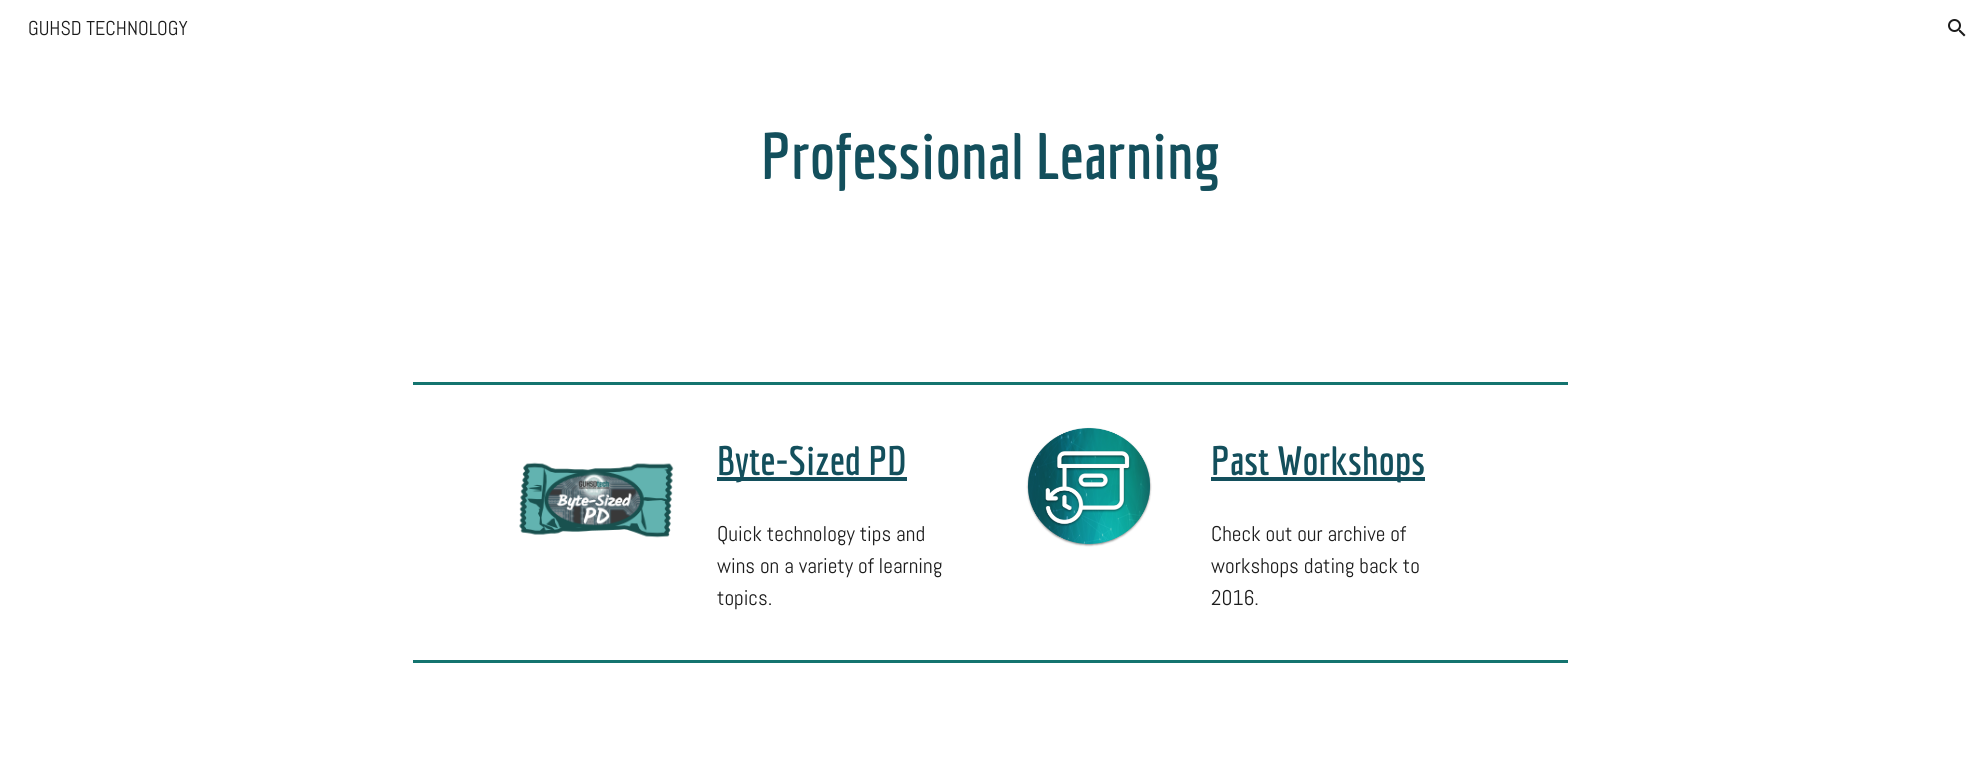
#include <cairo.h>
#include <math.h>
#include <stddef.h>


static void picture(cairo_t *cr, const char *path, double x, double y, double w, double h) {
    cairo_surface_t *image = cairo_image_surface_create_from_png(path);
    cairo_save(cr);
    cairo_set_source_surface(cr, image, x, y);
    cairo_rectangle(cr, x, y, w, h);
    cairo_fill(cr);
    cairo_restore(cr);
    cairo_surface_destroy(image);
}

int main(void) {
    cairo_surface_t *surface = cairo_image_surface_create(CAIRO_FORMAT_RGB24, 1981, 782);
    cairo_t *cr = cairo_create(surface);
    cairo_font_options_t *options = cairo_font_options_create();
    cairo_font_options_set_hint_metrics(options, CAIRO_HINT_METRICS_OFF);
    cairo_font_options_set_hint_style(options, CAIRO_HINT_STYLE_NONE);
    cairo_set_font_options(cr, options);
    cairo_set_miter_limit(cr, 4);
    cairo_set_source_rgb(cr, 1, 1, 1);
    cairo_paint(cr);
    cairo_select_font_face(cr, "Abel", CAIRO_FONT_SLANT_NORMAL, CAIRO_FONT_WEIGHT_NORMAL);
    cairo_set_font_size(cr, 20);
    cairo_set_source_rgb(cr, 0.11, 0.11, 0.11);
    cairo_move_to(cr, 28, 35);
    cairo_show_text(cr, "GUHSD TECHNOLOGY");
    picture(cr, "img1.png", 1948, 19, 18, 18);
    cairo_select_font_face(cr, "Economica", CAIRO_FONT_SLANT_NORMAL, CAIRO_FONT_WEIGHT_BOLD);
    cairo_set_font_size(cr, 64);
    cairo_set_source_rgb(cr, 0.075, 0.31, 0.361);
    cairo_move_to(cr, 761, 179);
    cairo_show_text(cr, "Professional Learning");
    cairo_set_source_rgb(cr, 0.082, 0.455, 0.435);
    cairo_rectangle(cr, 413, 382, 1155, 3);
    cairo_fill(cr);
    picture(cr, "img2.png", 519, 462, 155, 76);
    cairo_set_source_rgb(cr, 0.075, 0.31, 0.361);
    cairo_rectangle(cr, 717, 477, 190, 4);
    cairo_fill(cr);
    cairo_set_font_size(cr, 40);
    cairo_move_to(cr, 717, 475);
    cairo_show_text(cr, "Byte-Sized PD");
    cairo_select_font_face(cr, "Abel", CAIRO_FONT_SLANT_NORMAL, CAIRO_FONT_WEIGHT_NORMAL);
    cairo_set_font_size(cr, 21.25);
    cairo_set_source_rgb(cr, 0.11, 0.11, 0.11);
    cairo_move_to(cr, 717, 541);
    cairo_show_text(cr, "Quick technology tips and");
    cairo_move_to(cr, 717, 573);
    cairo_show_text(cr, "wins on a variety of learning");
    cairo_move_to(cr, 717, 605);
    cairo_show_text(cr, "topics.");
    picture(cr, "img3.png", 1026, 427, 126, 120);
    cairo_set_source_rgb(cr, 0.075, 0.31, 0.361);
    cairo_rectangle(cr, 1211, 477, 214, 4);
    cairo_fill(cr);
    cairo_select_font_face(cr, "Economica", CAIRO_FONT_SLANT_NORMAL, CAIRO_FONT_WEIGHT_BOLD);
    cairo_set_font_size(cr, 40);
    cairo_move_to(cr, 1211, 475);
    cairo_show_text(cr, "Past Workshops");
    cairo_select_font_face(cr, "Abel", CAIRO_FONT_SLANT_NORMAL, CAIRO_FONT_WEIGHT_NORMAL);
    cairo_set_font_size(cr, 21.25);
    cairo_set_source_rgb(cr, 0.11, 0.11, 0.11);
    cairo_move_to(cr, 1211, 541);
    cairo_show_text(cr, "Check out our archive of");
    cairo_move_to(cr, 1211, 573);
    cairo_show_text(cr, "workshops dating back to");
    cairo_move_to(cr, 1211, 605);
    cairo_show_text(cr, "2016.");
    cairo_set_source_rgb(cr, 0.082, 0.455, 0.435);
    cairo_rectangle(cr, 413, 660, 1155, 3);
    cairo_fill(cr);
    cairo_surface_write_to_png(surface, "page.png");
    cairo_font_options_destroy(options);
    cairo_destroy(cr);
    cairo_surface_destroy(surface);
    return 0;
}
